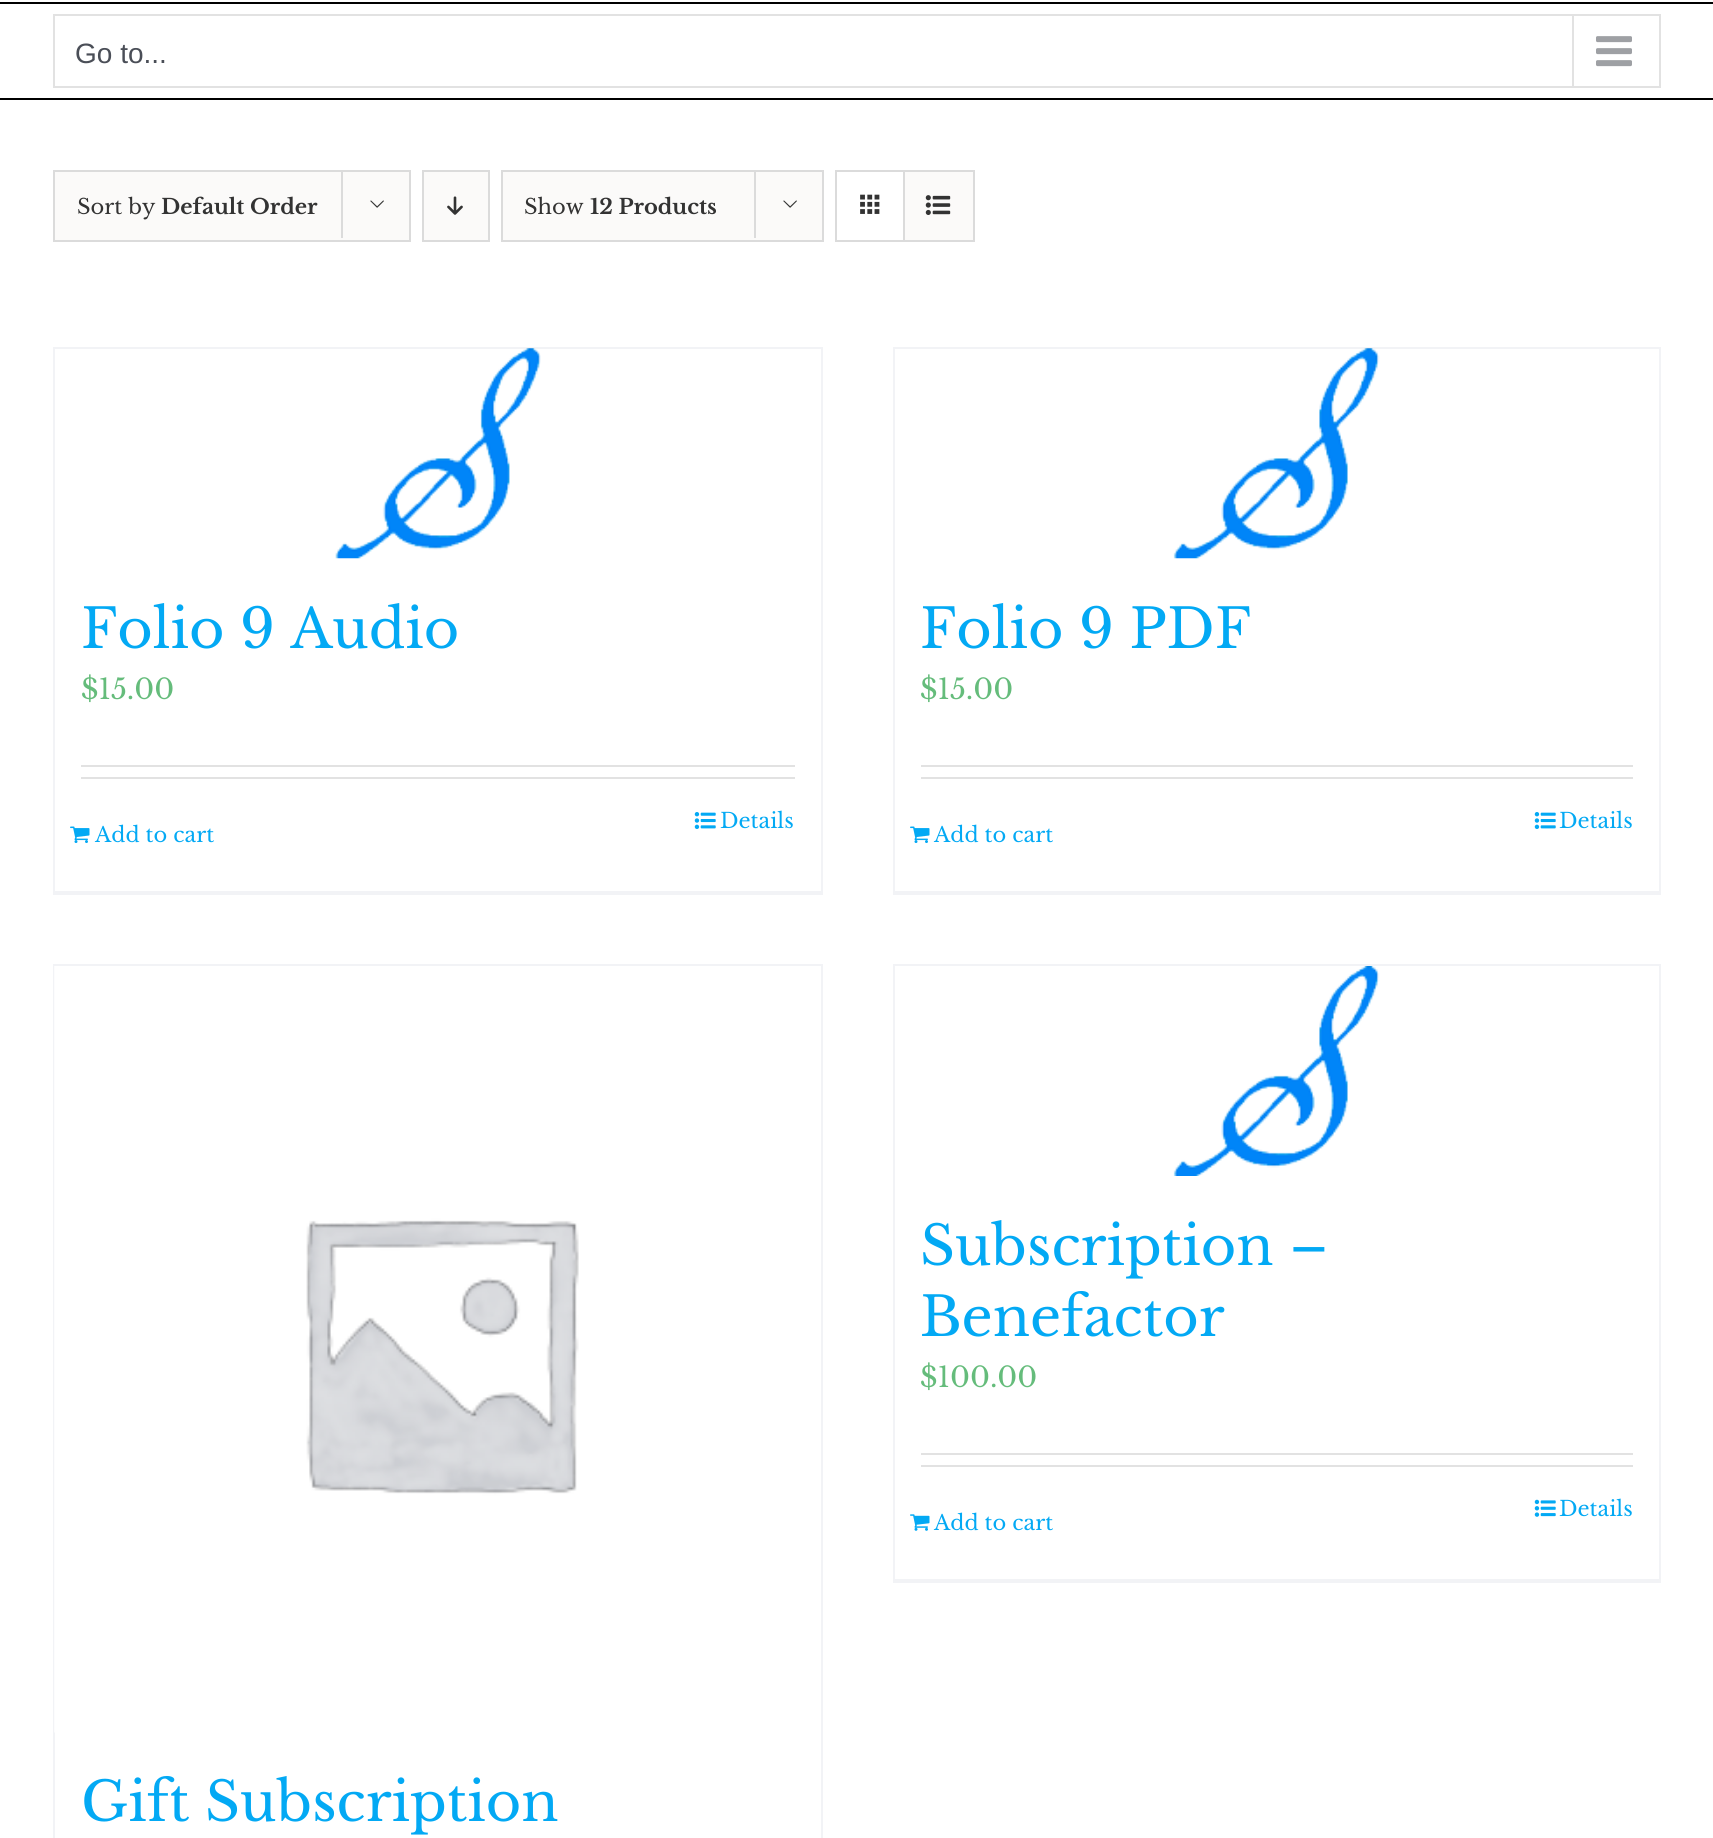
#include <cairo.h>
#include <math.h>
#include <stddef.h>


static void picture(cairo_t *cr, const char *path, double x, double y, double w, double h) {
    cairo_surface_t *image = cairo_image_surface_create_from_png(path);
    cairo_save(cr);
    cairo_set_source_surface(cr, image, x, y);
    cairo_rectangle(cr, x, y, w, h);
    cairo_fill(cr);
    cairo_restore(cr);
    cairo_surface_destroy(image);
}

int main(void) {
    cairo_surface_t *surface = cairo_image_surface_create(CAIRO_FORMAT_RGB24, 1713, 1838);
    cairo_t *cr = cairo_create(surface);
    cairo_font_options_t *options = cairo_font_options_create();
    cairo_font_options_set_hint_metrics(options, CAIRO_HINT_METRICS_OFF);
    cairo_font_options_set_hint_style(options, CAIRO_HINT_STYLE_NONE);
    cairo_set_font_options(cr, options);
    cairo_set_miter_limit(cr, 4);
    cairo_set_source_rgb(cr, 1, 1, 1);
    cairo_paint(cr);
    cairo_set_source_rgb(cr, 0, 0, 0);
    cairo_rectangle(cr, 0, 2, 1713, 2);
    cairo_fill(cr);
    cairo_rectangle(cr, 0, 98, 1713, 2);
    cairo_fill(cr);
    cairo_rectangle(cr, 54, 15, 1606, 72);
    cairo_set_source_rgb(cr, 0.886, 0.886, 0.886);
    cairo_stroke(cr);
    cairo_select_font_face(cr, "Liberation Sans", CAIRO_FONT_SLANT_NORMAL, CAIRO_FONT_WEIGHT_NORMAL);
    cairo_set_font_size(cr, 28);
    cairo_set_source_rgb(cr, 0.29, 0.306, 0.341);
    cairo_move_to(cr, 75, 63);
    cairo_show_text(cr, "Go to...");
    cairo_set_source_rgb(cr, 0.886, 0.886, 0.886);
    cairo_rectangle(cr, 1572, 16, 2, 70);
    cairo_fill(cr);
    picture(cr, "img1.png", 1596, 36, 36, 31);
    cairo_set_source_rgb(cr, 0.984, 0.98, 0.976);
    cairo_rectangle(cr, 54, 171, 356, 70);
    cairo_fill_preserve(cr);
    cairo_set_source_rgb(cr, 0.859, 0.859, 0.859);
    cairo_stroke(cr);
    cairo_select_font_face(cr, "Libre Baskerville", CAIRO_FONT_SLANT_NORMAL, CAIRO_FONT_WEIGHT_NORMAL);
    cairo_set_font_size(cr, 21);
    cairo_set_source_rgb(cr, 0.2, 0.2, 0.2);
    cairo_move_to(cr, 77, 214);
    cairo_show_text(cr, "Sort by");
    cairo_select_font_face(cr, "Libre Baskerville", CAIRO_FONT_SLANT_NORMAL, CAIRO_FONT_WEIGHT_BOLD);
    cairo_move_to(cr, 161, 214);
    cairo_show_text(cr, "Default Order");
    cairo_set_source_rgb(cr, 0.859, 0.859, 0.859);
    cairo_rectangle(cr, 341, 170, 2, 68);
    cairo_fill(cr);
    picture(cr, "img2.png", 370, 200, 14, 8);
    cairo_set_source_rgb(cr, 0.984, 0.98, 0.976);
    cairo_rectangle(cr, 423, 171, 66, 70);
    cairo_fill_preserve(cr);
    cairo_set_source_rgb(cr, 0.859, 0.859, 0.859);
    cairo_stroke(cr);
    picture(cr, "img3.png", 447, 196, 16, 19);
    cairo_set_source_rgb(cr, 0.984, 0.98, 0.976);
    cairo_rectangle(cr, 502, 171, 321, 70);
    cairo_fill_preserve(cr);
    cairo_set_source_rgb(cr, 0.859, 0.859, 0.859);
    cairo_stroke(cr);
    cairo_select_font_face(cr, "Libre Baskerville", CAIRO_FONT_SLANT_NORMAL, CAIRO_FONT_WEIGHT_NORMAL);
    cairo_set_source_rgb(cr, 0.2, 0.2, 0.2);
    cairo_move_to(cr, 524, 214);
    cairo_show_text(cr, "Show");
    cairo_select_font_face(cr, "Libre Baskerville", CAIRO_FONT_SLANT_NORMAL, CAIRO_FONT_WEIGHT_BOLD);
    cairo_move_to(cr, 590, 214);
    cairo_show_text(cr, "12 Products");
    cairo_set_source_rgb(cr, 0.859, 0.859, 0.859);
    cairo_rectangle(cr, 754, 170, 2, 68);
    cairo_fill(cr);
    picture(cr, "img2.png", 783, 200, 14, 8);
    cairo_rectangle(cr, 836, 171, 138, 70);
    cairo_stroke(cr);
    cairo_rectangle(cr, 903, 172, 2, 68);
    cairo_fill(cr);
    picture(cr, "img4.png", 860, 194, 20, 20);
    cairo_set_source_rgb(cr, 0.984, 0.98, 0.976);
    cairo_rectangle(cr, 905, 172, 68, 68);
    cairo_fill(cr);
    picture(cr, "img5.png", 925, 195, 26, 20);
    cairo_set_source_rgb(cr, 0.949, 0.953, 0.961);
    cairo_rectangle(cr, 53, 347, 770, 2);
    cairo_fill(cr);
    cairo_rectangle(cr, 821, 347, 2, 547);
    cairo_fill(cr);
    cairo_rectangle(cr, 53, 891, 770, 4);
    cairo_fill(cr);
    cairo_rectangle(cr, 53, 347, 2, 547);
    cairo_fill(cr);
    picture(cr, "img6.png", 335, 348, 206, 211);
    cairo_select_font_face(cr, "Libre Baskerville", CAIRO_FONT_SLANT_NORMAL, CAIRO_FONT_WEIGHT_NORMAL);
    cairo_set_font_size(cr, 54.25);
    cairo_set_source_rgb(cr, 0.012, 0.663, 0.957);
    cairo_move_to(cr, 81, 648);
    cairo_show_text(cr, "Folio 9 Audio");
    cairo_set_font_size(cr, 28);
    cairo_set_source_rgb(cr, 0.396, 0.737, 0.482);
    cairo_move_to(cr, 81, 699);
    cairo_show_text(cr, "$15.00");
    cairo_set_source_rgb(cr, 0.886, 0.886, 0.886);
    cairo_rectangle(cr, 81, 765, 714, 2);
    cairo_fill(cr);
    cairo_rectangle(cr, 81, 777, 714, 2);
    cairo_fill(cr);
    picture(cr, "img7.png", 694, 812, 22, 17);
    cairo_set_font_size(cr, 21);
    cairo_set_source_rgb(cr, 0.012, 0.663, 0.957);
    cairo_move_to(cr, 720, 828);
    cairo_show_text(cr, "Details");
    picture(cr, "img8.png", 70, 826, 20, 17);
    cairo_move_to(cr, 95, 842);
    cairo_show_text(cr, "Add to cart");
    cairo_set_source_rgb(cr, 0.949, 0.953, 0.961);
    cairo_rectangle(cr, 893, 347, 768, 2);
    cairo_fill(cr);
    cairo_rectangle(cr, 1659, 347, 2, 547);
    cairo_fill(cr);
    cairo_rectangle(cr, 893, 891, 768, 4);
    cairo_fill(cr);
    cairo_rectangle(cr, 893, 347, 2, 547);
    cairo_fill(cr);
    picture(cr, "img9.png", 1173, 348, 207, 211);
    cairo_set_font_size(cr, 54.25);
    cairo_set_source_rgb(cr, 0.012, 0.663, 0.957);
    cairo_move_to(cr, 920, 648);
    cairo_show_text(cr, "Folio 9 PDF");
    cairo_set_font_size(cr, 28);
    cairo_set_source_rgb(cr, 0.396, 0.737, 0.482);
    cairo_move_to(cr, 920, 699);
    cairo_show_text(cr, "$15.00");
    cairo_set_source_rgb(cr, 0.886, 0.886, 0.886);
    cairo_rectangle(cr, 921, 765, 712, 2);
    cairo_fill(cr);
    cairo_rectangle(cr, 921, 777, 712, 2);
    cairo_fill(cr);
    picture(cr, "img7.png", 1534, 812, 22, 17);
    cairo_set_font_size(cr, 21);
    cairo_set_source_rgb(cr, 0.012, 0.663, 0.957);
    cairo_move_to(cr, 1559, 828);
    cairo_show_text(cr, "Details");
    picture(cr, "img8.png", 910, 826, 20, 17);
    cairo_move_to(cr, 934, 842);
    cairo_show_text(cr, "Add to cart");
    cairo_set_source_rgb(cr, 0.949, 0.953, 0.961);
    cairo_rectangle(cr, 893, 964, 768, 2);
    cairo_fill(cr);
    cairo_rectangle(cr, 1659, 964, 2, 618);
    cairo_fill(cr);
    cairo_rectangle(cr, 893, 1579, 768, 4);
    cairo_fill(cr);
    cairo_rectangle(cr, 893, 964, 2, 618);
    cairo_fill(cr);
    picture(cr, "img10.png", 1173, 966, 207, 210);
    cairo_set_font_size(cr, 54.25);
    cairo_set_source_rgb(cr, 0.012, 0.663, 0.957);
    cairo_move_to(cr, 920, 1265);
    cairo_show_text(cr, "Subscription –");
    cairo_move_to(cr, 920, 1336);
    cairo_show_text(cr, "Benefactor");
    cairo_set_font_size(cr, 28);
    cairo_set_source_rgb(cr, 0.396, 0.737, 0.482);
    cairo_move_to(cr, 920, 1387);
    cairo_show_text(cr, "$100.00");
    cairo_set_source_rgb(cr, 0.886, 0.886, 0.886);
    cairo_rectangle(cr, 921, 1453, 712, 2);
    cairo_fill(cr);
    cairo_rectangle(cr, 921, 1465, 712, 2);
    cairo_fill(cr);
    picture(cr, "img11.png", 1534, 1499, 22, 18);
    cairo_set_font_size(cr, 21);
    cairo_set_source_rgb(cr, 0.012, 0.663, 0.957);
    cairo_move_to(cr, 1559, 1516);
    cairo_show_text(cr, "Details");
    picture(cr, "img12.png", 910, 1514, 20, 17);
    cairo_move_to(cr, 934, 1530);
    cairo_show_text(cr, "Add to cart");
    cairo_set_source_rgb(cr, 0.949, 0.953, 0.961);
    cairo_rectangle(cr, 53, 964, 770, 2);
    cairo_fill(cr);
    cairo_rectangle(cr, 821, 964, 2, 874);
    cairo_fill(cr);
    cairo_rectangle(cr, 53, 964, 2, 874);
    cairo_fill(cr);
    picture(cr, "img13.png", 54, 966, 525, 767);
    cairo_set_font_size(cr, 54.25);
    cairo_set_source_rgb(cr, 0.012, 0.663, 0.957);
    cairo_move_to(cr, 81, 1821);
    cairo_show_text(cr, "Gift Subscription");
    cairo_surface_write_to_png(surface, "page.png");
    cairo_font_options_destroy(options);
    cairo_destroy(cr);
    cairo_surface_destroy(surface);
    return 0;
}
